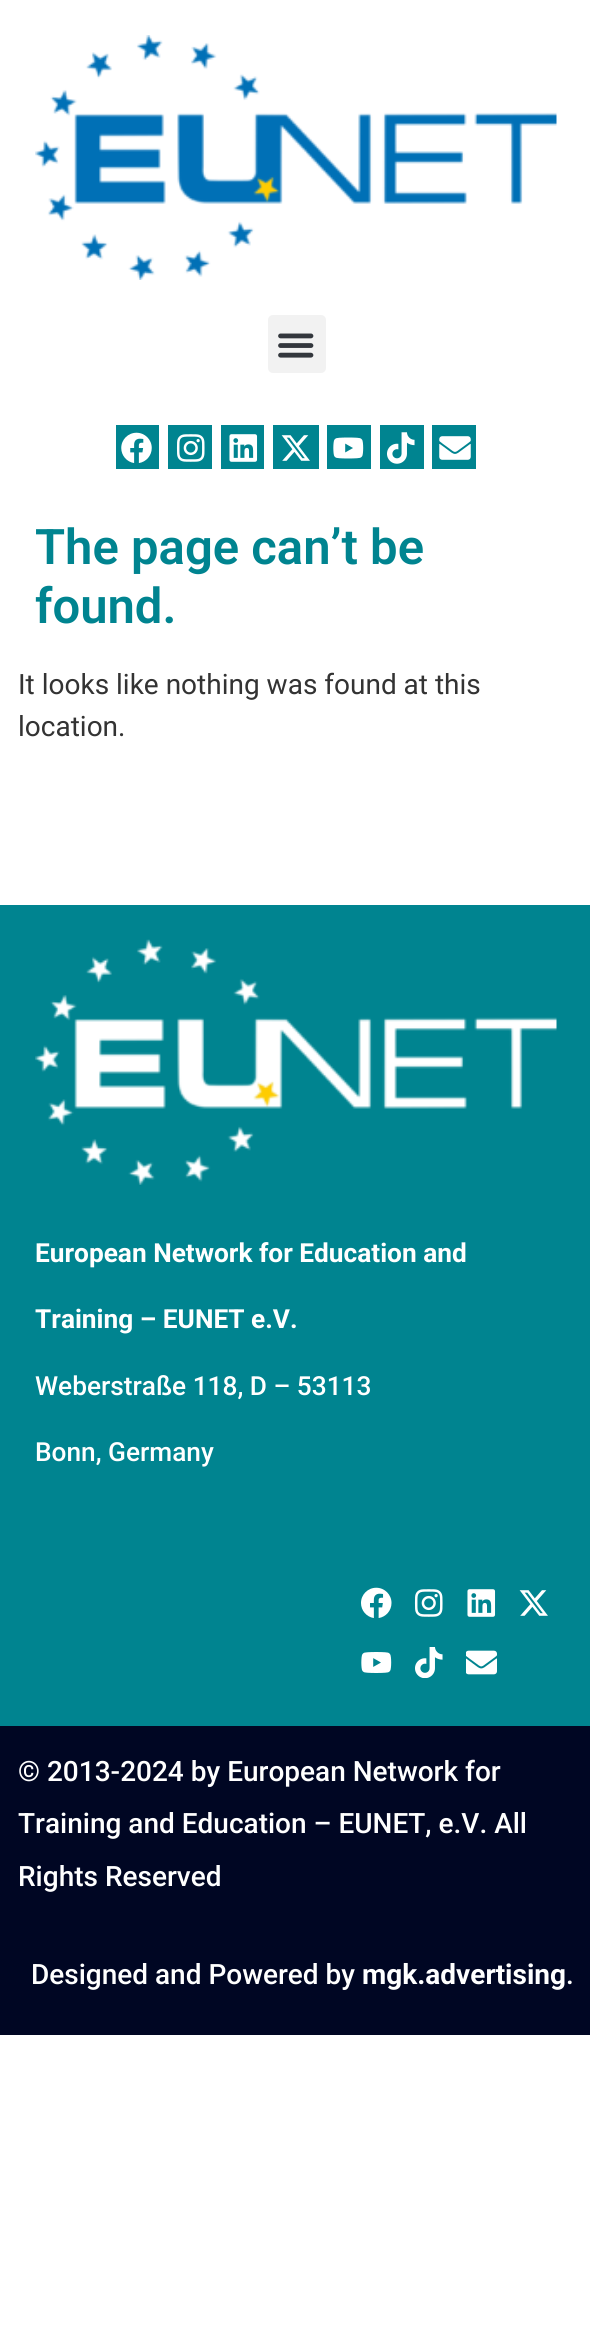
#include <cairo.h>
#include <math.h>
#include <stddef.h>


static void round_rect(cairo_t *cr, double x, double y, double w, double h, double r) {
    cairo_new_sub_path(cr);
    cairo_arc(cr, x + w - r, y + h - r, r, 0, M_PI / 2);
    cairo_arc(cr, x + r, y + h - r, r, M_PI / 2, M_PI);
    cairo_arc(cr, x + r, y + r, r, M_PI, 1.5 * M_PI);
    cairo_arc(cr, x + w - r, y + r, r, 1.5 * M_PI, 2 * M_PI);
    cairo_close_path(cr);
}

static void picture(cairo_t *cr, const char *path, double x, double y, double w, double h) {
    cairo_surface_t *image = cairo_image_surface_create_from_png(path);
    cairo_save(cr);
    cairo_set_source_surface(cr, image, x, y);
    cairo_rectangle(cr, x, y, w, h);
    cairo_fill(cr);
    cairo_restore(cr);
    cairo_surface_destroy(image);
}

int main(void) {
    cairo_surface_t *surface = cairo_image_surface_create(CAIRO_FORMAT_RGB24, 590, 2342);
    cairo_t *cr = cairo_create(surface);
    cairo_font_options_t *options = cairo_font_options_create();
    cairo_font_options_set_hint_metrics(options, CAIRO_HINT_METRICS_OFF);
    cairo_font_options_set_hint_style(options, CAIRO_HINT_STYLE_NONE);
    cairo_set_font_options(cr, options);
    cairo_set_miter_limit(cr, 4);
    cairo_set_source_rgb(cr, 1, 1, 1);
    cairo_paint(cr);
    picture(cr, "img1.png", 35, 35, 522, 245);
    cairo_set_source_rgb(cr, 0.949, 0.949, 0.949);
    round_rect(cr, 268, 315, 58, 58, 5);
    cairo_fill(cr);
    picture(cr, "img2.png", 278, 333, 36, 25);
    cairo_set_source_rgb(cr, 0, 0.518, 0.565);
    cairo_rectangle(cr, 116, 425, 43, 44);
    cairo_fill(cr);
    picture(cr, "img3.png", 121, 432, 31, 31);
    cairo_rectangle(cr, 168, 425, 44, 44);
    cairo_fill(cr);
    picture(cr, "img4.png", 176, 434, 29, 28);
    cairo_rectangle(cr, 221, 425, 43, 44);
    cairo_fill(cr);
    picture(cr, "img5.png", 229, 434, 29, 28);
    cairo_rectangle(cr, 273, 425, 46, 44);
    cairo_fill(cr);
    picture(cr, "img6.png", 281, 435, 29, 26);
    cairo_rectangle(cr, 327, 425, 44, 44);
    cairo_fill(cr);
    picture(cr, "img7.png", 333, 437, 31, 22);
    cairo_rectangle(cr, 380, 425, 44, 44);
    cairo_fill(cr);
    picture(cr, "img8.png", 387, 432, 28, 32);
    cairo_rectangle(cr, 432, 425, 44, 44);
    cairo_fill(cr);
    picture(cr, "img9.png", 439, 436, 32, 24);
    cairo_select_font_face(cr, "Roboto SemiBold", CAIRO_FONT_SLANT_NORMAL, CAIRO_FONT_WEIGHT_NORMAL);
    cairo_set_font_size(cr, 49);
    cairo_move_to(cr, 35, 564);
    cairo_show_text(cr, "The page can’t be");
    cairo_move_to(cr, 35, 623);
    cairo_show_text(cr, "found.");
    cairo_select_font_face(cr, "Roboto", CAIRO_FONT_SLANT_NORMAL, CAIRO_FONT_WEIGHT_NORMAL);
    cairo_set_font_size(cr, 28);
    cairo_set_source_rgb(cr, 0.2, 0.2, 0.2);
    cairo_move_to(cr, 18, 694);
    cairo_show_text(cr, "It looks like nothing was found at this");
    cairo_move_to(cr, 18, 736);
    cairo_show_text(cr, "location.");
    cairo_set_source_rgb(cr, 0, 0.518, 0.565);
    cairo_rectangle(cr, 0, 905, 590, 821);
    cairo_fill(cr);
    picture(cr, "img10.png", 35, 939, 522, 246);
    cairo_select_font_face(cr, "Roboto", CAIRO_FONT_SLANT_NORMAL, CAIRO_FONT_WEIGHT_BOLD);
    cairo_set_font_size(cr, 26.25);
    cairo_set_source_rgb(cr, 1, 1, 1);
    cairo_move_to(cr, 35, 1262);
    cairo_show_text(cr, "European Network for Education and");
    cairo_move_to(cr, 35, 1328);
    cairo_show_text(cr, "Training – EUNET e.V.");
    cairo_select_font_face(cr, "Roboto Medium", CAIRO_FONT_SLANT_NORMAL, CAIRO_FONT_WEIGHT_NORMAL);
    cairo_move_to(cr, 35, 1395);
    cairo_show_text(cr, "Weberstraße 118, D – 53113");
    cairo_move_to(cr, 35, 1461);
    cairo_show_text(cr, "Bonn, Germany");
    picture(cr, "img11.png", 361, 1587, 31, 31);
    picture(cr, "img4.png", 414, 1589, 29, 28);
    picture(cr, "img5.png", 467, 1589, 29, 28);
    picture(cr, "img6.png", 519, 1590, 29, 26);
    picture(cr, "img12.png", 361, 1652, 31, 21);
    picture(cr, "img13.png", 415, 1647, 28, 31);
    picture(cr, "img14.png", 466, 1650, 31, 25);
    cairo_set_source_rgb(cr, 0, 0.024, 0.137);
    cairo_rectangle(cr, 0, 1726, 590, 309);
    cairo_fill(cr);
    cairo_set_font_size(cr, 28);
    cairo_set_source_rgb(cr, 1, 1, 1);
    cairo_move_to(cr, 18, 1781);
    cairo_show_text(cr, "© 2013-2024 by European Network for");
    cairo_move_to(cr, 18, 1833);
    cairo_show_text(cr, "Training and Education – EUNET, e.V. All");
    cairo_move_to(cr, 18, 1886);
    cairo_show_text(cr, "Rights Reserved");
    cairo_move_to(cr, 31, 1984);
    cairo_show_text(cr, "Designed and Powered by");
    cairo_select_font_face(cr, "Roboto", CAIRO_FONT_SLANT_NORMAL, CAIRO_FONT_WEIGHT_BOLD);
    cairo_move_to(cr, 362, 1984);
    cairo_show_text(cr, "mgk.advertising");
    cairo_select_font_face(cr, "Roboto Medium", CAIRO_FONT_SLANT_NORMAL, CAIRO_FONT_WEIGHT_NORMAL);
    cairo_move_to(cr, 566, 1984);
    cairo_show_text(cr, ".");
    cairo_surface_write_to_png(surface, "page.png");
    cairo_font_options_destroy(options);
    cairo_destroy(cr);
    cairo_surface_destroy(surface);
    return 0;
}
